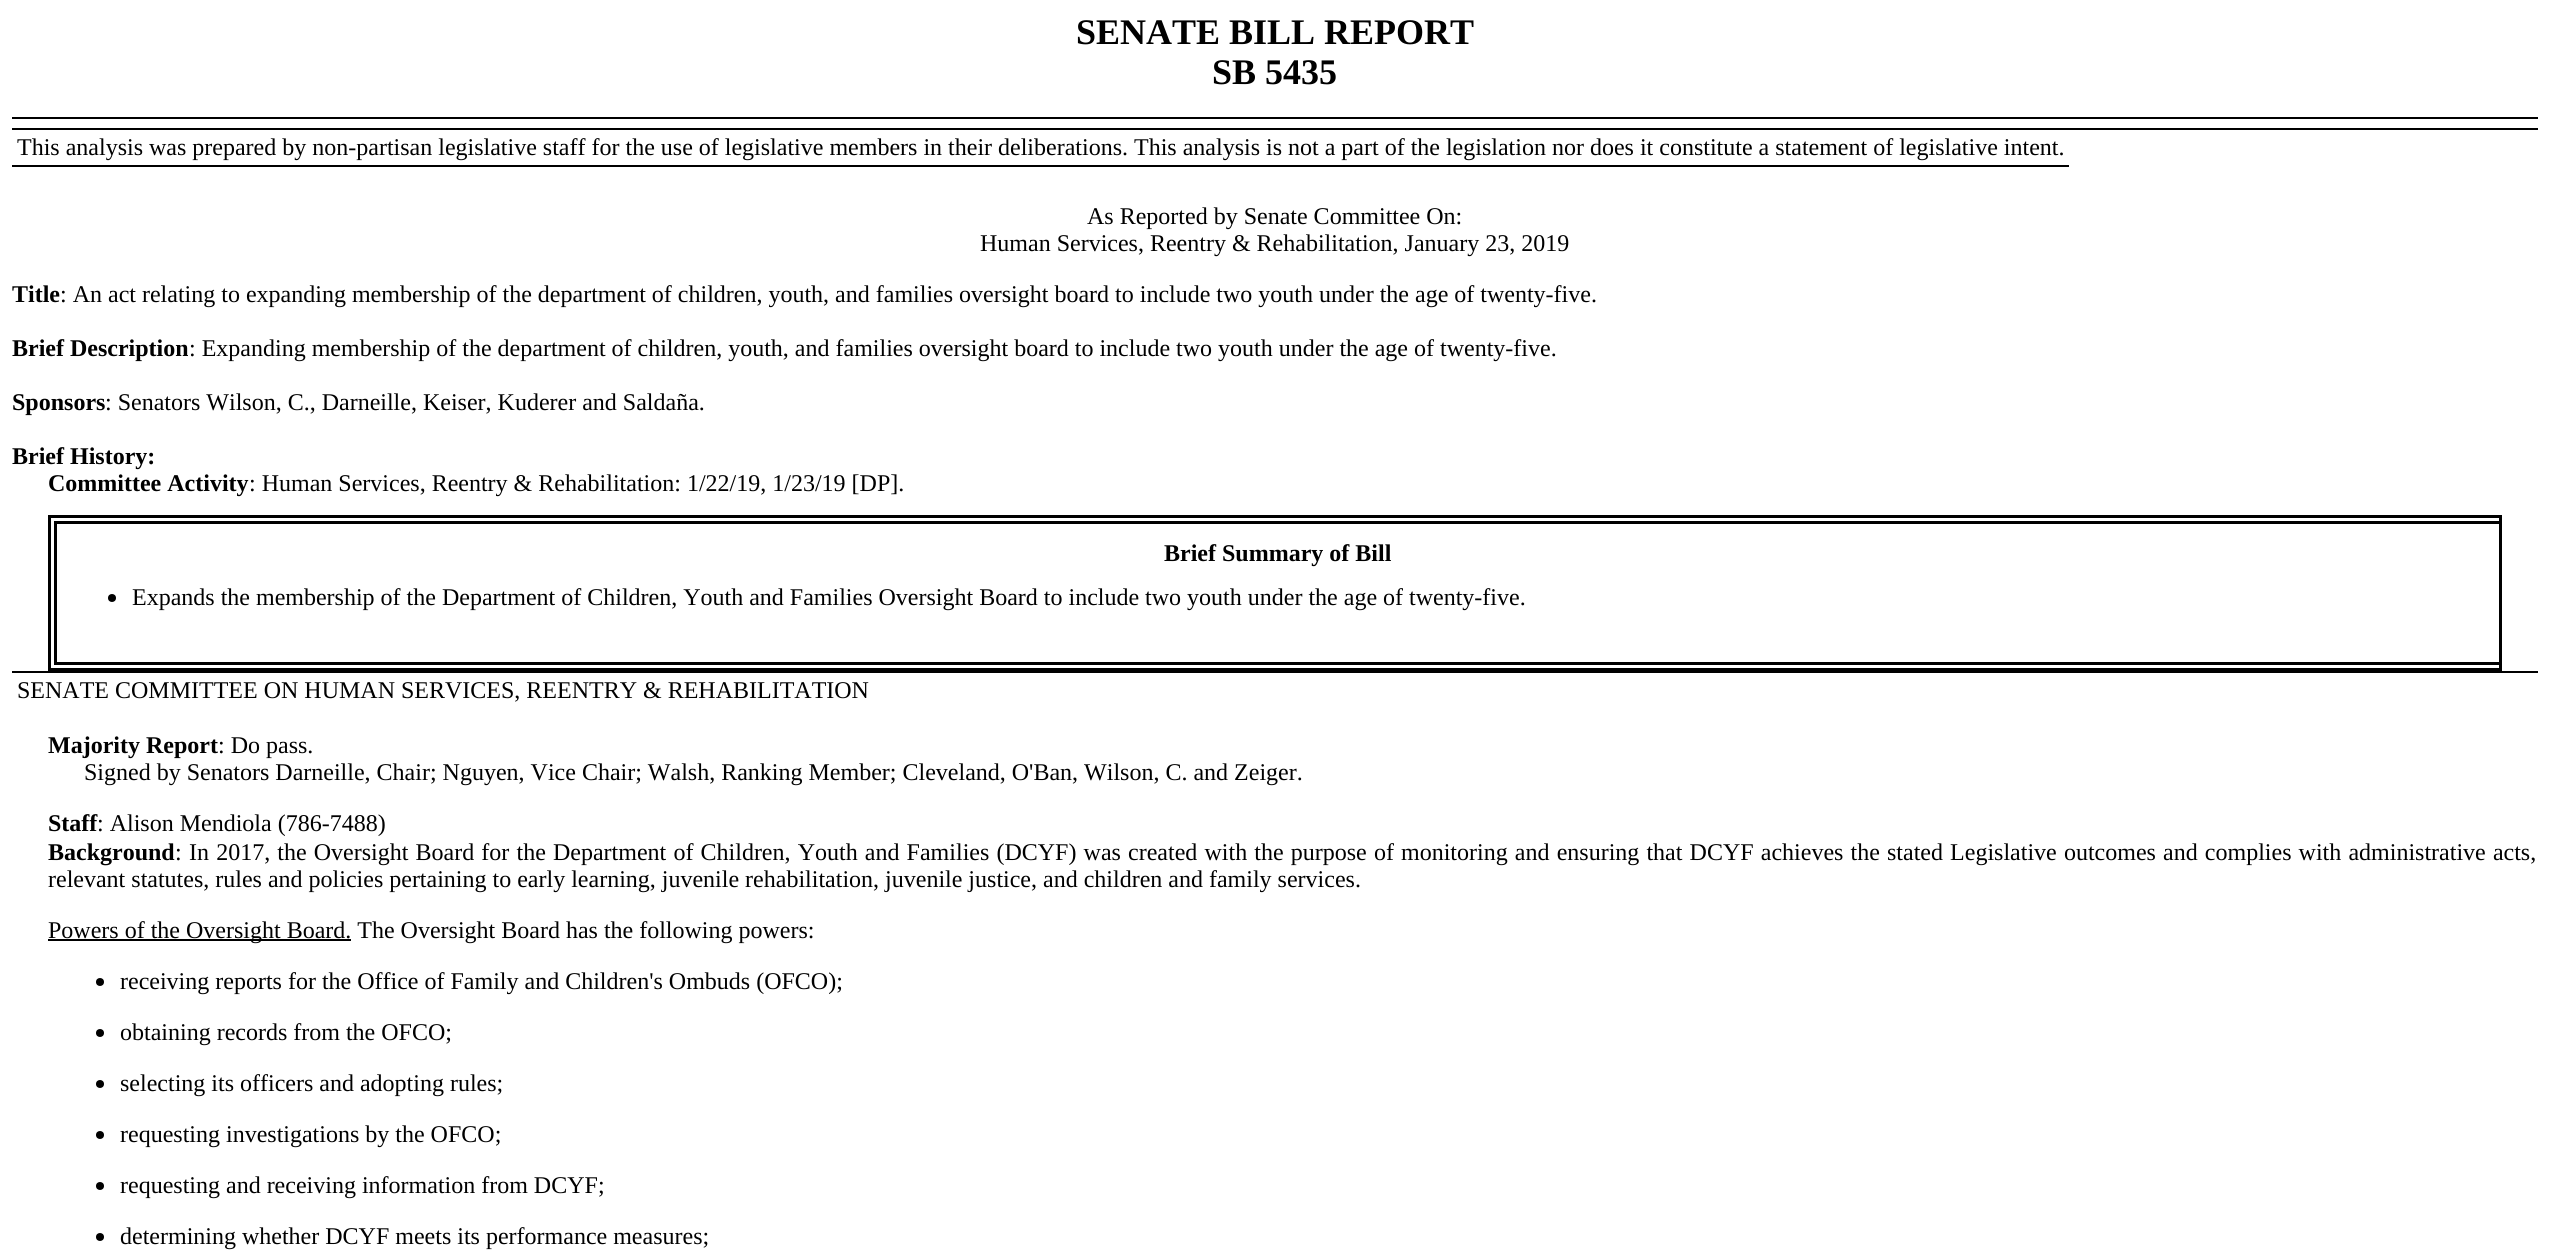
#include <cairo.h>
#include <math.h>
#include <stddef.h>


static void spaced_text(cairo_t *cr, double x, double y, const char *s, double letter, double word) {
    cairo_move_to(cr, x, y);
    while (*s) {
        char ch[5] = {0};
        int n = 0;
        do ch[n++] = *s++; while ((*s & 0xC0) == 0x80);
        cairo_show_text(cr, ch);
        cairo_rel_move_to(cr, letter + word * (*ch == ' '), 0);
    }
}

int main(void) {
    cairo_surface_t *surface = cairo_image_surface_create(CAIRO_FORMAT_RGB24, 2550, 1252);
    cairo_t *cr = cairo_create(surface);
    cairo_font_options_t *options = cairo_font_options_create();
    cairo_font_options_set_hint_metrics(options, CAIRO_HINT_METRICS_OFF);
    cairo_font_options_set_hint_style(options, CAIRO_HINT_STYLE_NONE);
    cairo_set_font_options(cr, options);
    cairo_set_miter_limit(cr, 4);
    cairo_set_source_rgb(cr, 1, 1, 1);
    cairo_paint(cr);
    cairo_select_font_face(cr, "Liberation Serif", CAIRO_FONT_SLANT_NORMAL, CAIRO_FONT_WEIGHT_BOLD);
    cairo_set_font_size(cr, 36);
    cairo_set_source_rgb(cr, 0, 0, 0);
    cairo_move_to(cr, 1076, 44);
    cairo_show_text(cr, "SENATE BILL REPORT");
    cairo_move_to(cr, 1212, 84);
    cairo_show_text(cr, "SB 5435");
    cairo_rectangle(cr, 12, 117, 2526, 2);
    cairo_fill(cr);
    cairo_rectangle(cr, 12, 128, 2526, 2);
    cairo_fill(cr);
    cairo_rectangle(cr, 12, 165, 2057, 2);
    cairo_fill(cr);
    cairo_select_font_face(cr, "Liberation Serif", CAIRO_FONT_SLANT_NORMAL, CAIRO_FONT_WEIGHT_NORMAL);
    cairo_set_font_size(cr, 24);
    cairo_move_to(cr, 17, 155);
    cairo_show_text(cr, "This analysis was prepared by non-partisan legislative staff for the use of legislative members in their deliberations. This analysis is not a part of the legislation nor does it constitute a statement of legislative intent.");
    cairo_move_to(cr, 1087, 224);
    cairo_show_text(cr, "As Reported by Senate Committee On:");
    cairo_move_to(cr, 980, 251);
    cairo_show_text(cr, "Human Services, Reentry & Rehabilitation, January 23, 2019");
    cairo_select_font_face(cr, "Liberation Serif", CAIRO_FONT_SLANT_NORMAL, CAIRO_FONT_WEIGHT_BOLD);
    cairo_move_to(cr, 12, 302);
    cairo_show_text(cr, "Title");
    cairo_select_font_face(cr, "Liberation Serif", CAIRO_FONT_SLANT_NORMAL, CAIRO_FONT_WEIGHT_NORMAL);
    cairo_move_to(cr, 60, 302);
    cairo_show_text(cr, ": An act relating to expanding membership of the department of children, youth, and families oversight board to include two youth under the age of twenty-five.");
    cairo_select_font_face(cr, "Liberation Serif", CAIRO_FONT_SLANT_NORMAL, CAIRO_FONT_WEIGHT_BOLD);
    cairo_move_to(cr, 12, 356);
    cairo_show_text(cr, "Brief Description");
    cairo_select_font_face(cr, "Liberation Serif", CAIRO_FONT_SLANT_NORMAL, CAIRO_FONT_WEIGHT_NORMAL);
    cairo_move_to(cr, 189, 356);
    cairo_show_text(cr, ": Expanding membership of the department of children, youth, and families oversight board to include two youth under the age of twenty-five.");
    cairo_select_font_face(cr, "Liberation Serif", CAIRO_FONT_SLANT_NORMAL, CAIRO_FONT_WEIGHT_BOLD);
    cairo_move_to(cr, 12, 410);
    cairo_show_text(cr, "Sponsors");
    cairo_select_font_face(cr, "Liberation Serif", CAIRO_FONT_SLANT_NORMAL, CAIRO_FONT_WEIGHT_NORMAL);
    cairo_move_to(cr, 105, 410);
    cairo_show_text(cr, ": Senators Wilson, C., Darneille, Keiser, Kuderer and Saldaña.");
    cairo_select_font_face(cr, "Liberation Serif", CAIRO_FONT_SLANT_NORMAL, CAIRO_FONT_WEIGHT_BOLD);
    cairo_move_to(cr, 12, 464);
    cairo_show_text(cr, "Brief History:");
    cairo_move_to(cr, 48, 491);
    cairo_show_text(cr, "Committee Activity");
    cairo_select_font_face(cr, "Liberation Serif", CAIRO_FONT_SLANT_NORMAL, CAIRO_FONT_WEIGHT_NORMAL);
    cairo_move_to(cr, 249, 491);
    cairo_show_text(cr, ": Human Services, Reentry & Rehabilitation: 1/22/19, 1/23/19 [DP].");
    cairo_rectangle(cr, 49.5, 516.5, 2451, 153);
    cairo_set_line_width(cr, 3);
    cairo_stroke(cr);
    cairo_rectangle(cr, 55.5, 522.5, 2445, 141);
    cairo_stroke(cr);
    cairo_select_font_face(cr, "Liberation Serif", CAIRO_FONT_SLANT_NORMAL, CAIRO_FONT_WEIGHT_BOLD);
    cairo_move_to(cr, 1164, 561);
    cairo_show_text(cr, "Brief Summary of Bill");
    cairo_new_path(cr);
    cairo_arc(cr, 112, 598, 4, 0, 2 * M_PI);
    cairo_fill(cr);
    cairo_select_font_face(cr, "Liberation Serif", CAIRO_FONT_SLANT_NORMAL, CAIRO_FONT_WEIGHT_NORMAL);
    cairo_move_to(cr, 132, 605);
    cairo_show_text(cr, "Expands the membership of the Department of Children, Youth and Families Oversight Board to include two youth under the age of twenty-five.");
    cairo_rectangle(cr, 12, 671, 2526, 2);
    cairo_fill(cr);
    cairo_move_to(cr, 17, 698);
    cairo_show_text(cr, "SENATE COMMITTEE ON HUMAN SERVICES, REENTRY & REHABILITATION");
    cairo_select_font_face(cr, "Liberation Serif", CAIRO_FONT_SLANT_NORMAL, CAIRO_FONT_WEIGHT_BOLD);
    cairo_move_to(cr, 48, 753);
    cairo_show_text(cr, "Majority Report");
    cairo_select_font_face(cr, "Liberation Serif", CAIRO_FONT_SLANT_NORMAL, CAIRO_FONT_WEIGHT_NORMAL);
    cairo_move_to(cr, 218, 753);
    cairo_show_text(cr, ": Do pass.");
    cairo_move_to(cr, 84, 780);
    cairo_show_text(cr, "Signed by Senators Darneille, Chair; Nguyen, Vice Chair; Walsh, Ranking Member; Cleveland, O'Ban, Wilson, C. and Zeiger.");
    cairo_select_font_face(cr, "Liberation Serif", CAIRO_FONT_SLANT_NORMAL, CAIRO_FONT_WEIGHT_BOLD);
    cairo_move_to(cr, 48, 831);
    cairo_show_text(cr, "Staff");
    cairo_select_font_face(cr, "Liberation Serif", CAIRO_FONT_SLANT_NORMAL, CAIRO_FONT_WEIGHT_NORMAL);
    cairo_move_to(cr, 97, 831);
    cairo_show_text(cr, ": Alison Mendiola (786-7488)");
    cairo_select_font_face(cr, "Liberation Serif", CAIRO_FONT_SLANT_NORMAL, CAIRO_FONT_WEIGHT_BOLD);
    cairo_move_to(cr, 48, 860);
    cairo_show_text(cr, "Background");
    cairo_select_font_face(cr, "Liberation Serif", CAIRO_FONT_SLANT_NORMAL, CAIRO_FONT_WEIGHT_NORMAL);
    cairo_move_to(cr, 175, 860);
    cairo_show_text(cr, ":");
    spaced_text(cr, 189, 860, "In 2017, the Oversight Board for the Department of Children, Youth and Families (DCYF) was created with the purpose of monitoring and ensuring that DCYF achieves the stated Legislative outcomes and complies with administrative acts,", 0, 1.15);
    cairo_move_to(cr, 48, 887);
    cairo_show_text(cr, "relevant statutes, rules and policies pertaining to early learning, juvenile rehabilitation, juvenile justice, and children and family services.");
    cairo_rectangle(cr, 48, 939, 303, 2);
    cairo_fill(cr);
    cairo_move_to(cr, 48, 938);
    cairo_show_text(cr, "Powers of the Oversight Board. The Oversight Board has the following powers:");
    cairo_new_path(cr);
    cairo_arc(cr, 100, 982, 4, 0, 2 * M_PI);
    cairo_fill(cr);
    cairo_move_to(cr, 120, 989);
    cairo_show_text(cr, "receiving reports for the Office of Family and Children's Ombuds (OFCO);");
    cairo_new_path(cr);
    cairo_arc(cr, 100, 1033, 4, 0, 2 * M_PI);
    cairo_fill(cr);
    cairo_move_to(cr, 120, 1040);
    cairo_show_text(cr, "obtaining records from the OFCO;");
    cairo_new_path(cr);
    cairo_arc(cr, 100, 1084, 4, 0, 2 * M_PI);
    cairo_fill(cr);
    cairo_move_to(cr, 120, 1091);
    cairo_show_text(cr, "selecting its officers and adopting rules;");
    cairo_new_path(cr);
    cairo_arc(cr, 100, 1135, 4, 0, 2 * M_PI);
    cairo_fill(cr);
    cairo_move_to(cr, 120, 1142);
    cairo_show_text(cr, "requesting investigations by the OFCO;");
    cairo_new_path(cr);
    cairo_arc(cr, 100, 1186, 4, 0, 2 * M_PI);
    cairo_fill(cr);
    cairo_move_to(cr, 120, 1193);
    cairo_show_text(cr, "requesting and receiving information from DCYF;");
    cairo_new_path(cr);
    cairo_arc(cr, 100, 1237, 4, 0, 2 * M_PI);
    cairo_fill(cr);
    cairo_move_to(cr, 120, 1244);
    cairo_show_text(cr, "determining whether DCYF meets its performance measures;");
    cairo_surface_write_to_png(surface, "page.png");
    cairo_font_options_destroy(options);
    cairo_destroy(cr);
    cairo_surface_destroy(surface);
    return 0;
}
